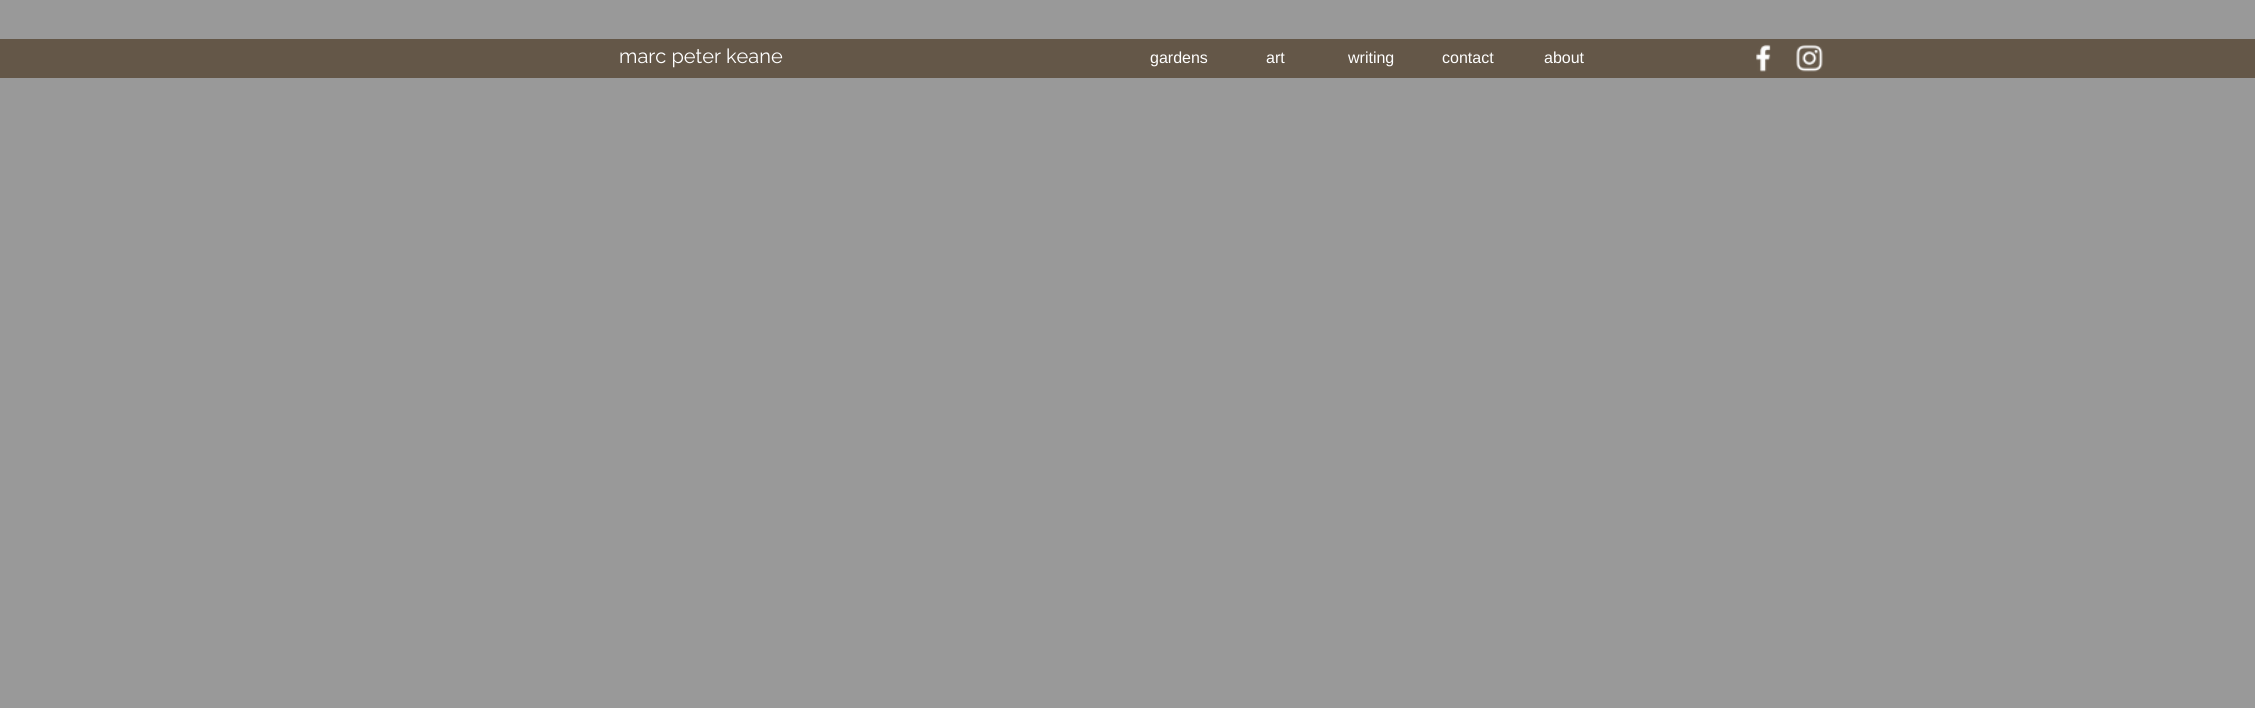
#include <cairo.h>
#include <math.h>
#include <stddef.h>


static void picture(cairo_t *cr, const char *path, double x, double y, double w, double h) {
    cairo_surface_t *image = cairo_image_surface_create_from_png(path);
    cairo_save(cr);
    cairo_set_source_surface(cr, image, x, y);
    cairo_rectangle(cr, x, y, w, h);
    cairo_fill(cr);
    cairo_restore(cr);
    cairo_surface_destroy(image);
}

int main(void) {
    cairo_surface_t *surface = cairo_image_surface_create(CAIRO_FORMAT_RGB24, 2255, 708);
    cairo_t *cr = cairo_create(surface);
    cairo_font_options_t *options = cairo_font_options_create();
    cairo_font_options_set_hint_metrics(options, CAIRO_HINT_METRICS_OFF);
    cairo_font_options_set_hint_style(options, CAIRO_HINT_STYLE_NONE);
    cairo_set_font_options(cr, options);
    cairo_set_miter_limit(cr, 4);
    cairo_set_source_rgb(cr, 0.6, 0.6, 0.6);
    cairo_paint(cr);
    cairo_set_source_rgb(cr, 0.392, 0.341, 0.282);
    cairo_rectangle(cr, 0, 39, 2255, 39);
    cairo_fill(cr);
    cairo_select_font_face(cr, "Raleway", CAIRO_FONT_SLANT_NORMAL, CAIRO_FONT_WEIGHT_NORMAL);
    cairo_set_font_size(cr, 20);
    cairo_set_source_rgb(cr, 1, 1, 1);
    cairo_move_to(cr, 619, 63);
    cairo_show_text(cr, "marc peter keane");
    cairo_select_font_face(cr, "Liberation Sans", CAIRO_FONT_SLANT_NORMAL, CAIRO_FONT_WEIGHT_NORMAL);
    cairo_set_font_size(cr, 16);
    cairo_move_to(cr, 1150, 63);
    cairo_show_text(cr, "gardens");
    cairo_move_to(cr, 1266, 63);
    cairo_show_text(cr, "art");
    cairo_move_to(cr, 1348, 63);
    cairo_show_text(cr, "writing");
    cairo_move_to(cr, 1442, 63);
    cairo_show_text(cr, "contact");
    cairo_move_to(cr, 1544, 63);
    cairo_show_text(cr, "about");
    picture(cr, "img1.png", 1756, 44, 15, 28);
    picture(cr, "img2.png", 1796, 44, 27, 28);
    cairo_surface_write_to_png(surface, "page.png");
    cairo_font_options_destroy(options);
    cairo_destroy(cr);
    cairo_surface_destroy(surface);
    return 0;
}
